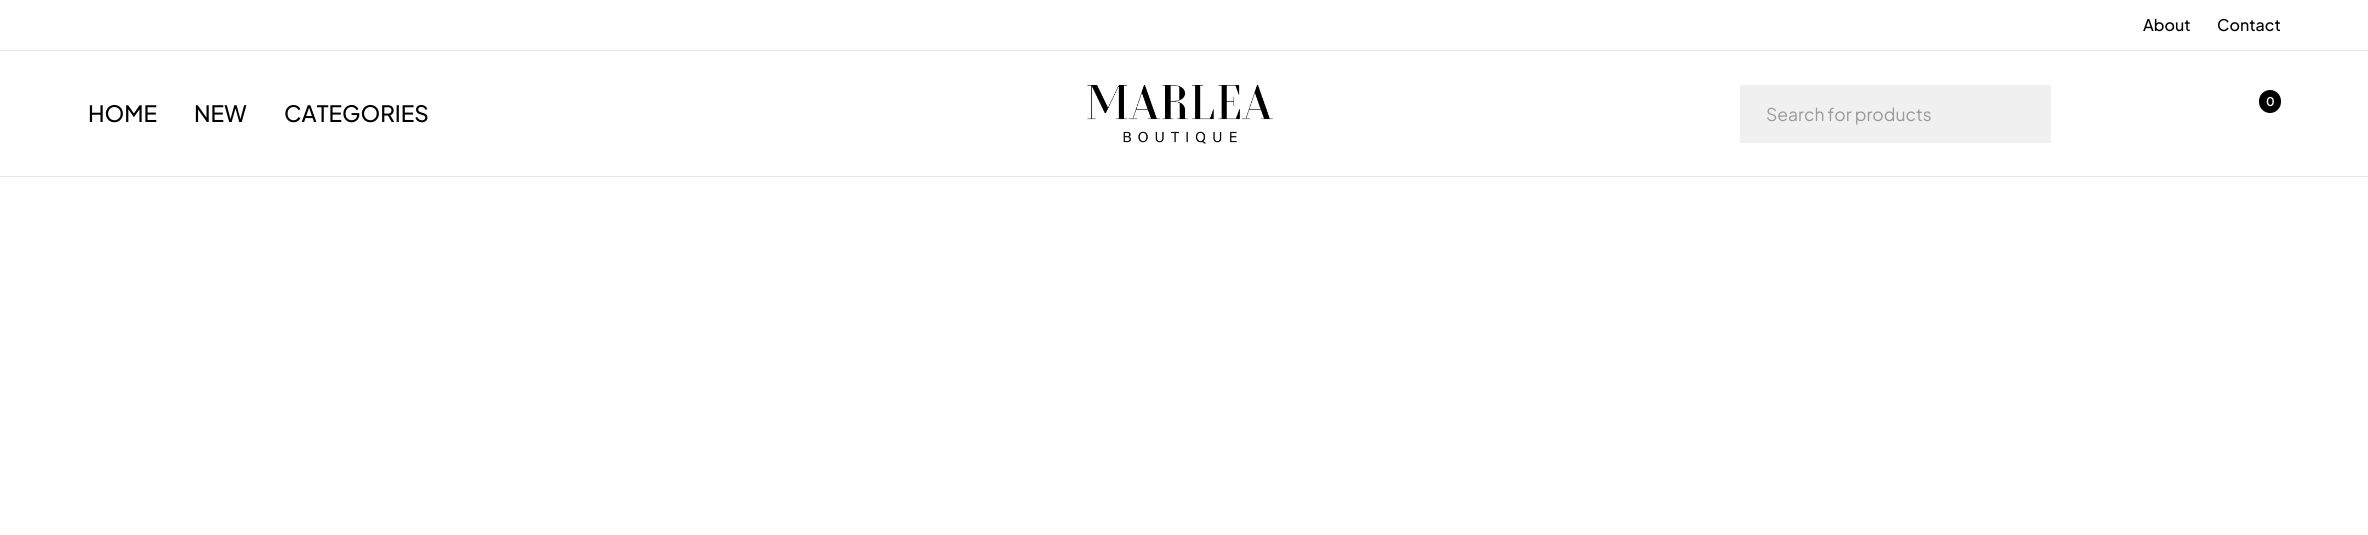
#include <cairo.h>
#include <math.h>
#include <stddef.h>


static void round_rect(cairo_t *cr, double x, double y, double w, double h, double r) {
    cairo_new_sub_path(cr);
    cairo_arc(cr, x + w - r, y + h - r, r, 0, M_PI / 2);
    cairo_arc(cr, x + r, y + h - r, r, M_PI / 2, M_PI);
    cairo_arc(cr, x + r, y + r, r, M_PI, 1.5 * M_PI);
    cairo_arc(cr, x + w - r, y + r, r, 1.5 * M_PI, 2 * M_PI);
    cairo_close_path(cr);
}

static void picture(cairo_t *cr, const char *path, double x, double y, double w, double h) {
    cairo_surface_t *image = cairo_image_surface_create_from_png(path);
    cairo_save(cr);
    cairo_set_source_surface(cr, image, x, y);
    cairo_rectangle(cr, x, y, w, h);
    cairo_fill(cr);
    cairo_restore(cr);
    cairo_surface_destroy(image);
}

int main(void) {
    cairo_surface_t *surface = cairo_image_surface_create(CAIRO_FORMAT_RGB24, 2368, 535);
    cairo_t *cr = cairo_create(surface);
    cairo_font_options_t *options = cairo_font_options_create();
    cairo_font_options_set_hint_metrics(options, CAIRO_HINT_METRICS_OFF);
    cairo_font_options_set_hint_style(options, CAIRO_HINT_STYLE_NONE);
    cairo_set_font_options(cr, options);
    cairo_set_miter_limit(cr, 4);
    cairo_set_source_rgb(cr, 1, 1, 1);
    cairo_paint(cr);
    cairo_set_source_rgb(cr, 0.898, 0.898, 0.898);
    cairo_rectangle(cr, 0, 50, 2368, 1);
    cairo_fill(cr);
    cairo_select_font_face(cr, "Plus Jakarta Sans Medium", CAIRO_FONT_SLANT_NORMAL, CAIRO_FONT_WEIGHT_NORMAL);
    cairo_set_font_size(cr, 16);
    cairo_set_source_rgb(cr, 0, 0, 0);
    cairo_move_to(cr, 2143, 31);
    cairo_show_text(cr, "About");
    cairo_move_to(cr, 2217, 31);
    cairo_show_text(cr, "Contact");
    cairo_set_font_size(cr, 22.5);
    cairo_move_to(cr, 88, 122);
    cairo_show_text(cr, "HOME");
    cairo_move_to(cr, 194, 122);
    cairo_show_text(cr, "NEW");
    cairo_move_to(cr, 284, 122);
    cairo_show_text(cr, "CATEGORIES");
    picture(cr, "img1.png", 1087, 85, 186, 59);
    round_rect(cr, 2259, 90, 22, 23, 11);
    cairo_fill(cr);
    cairo_select_font_face(cr, "Plus Jakarta Sans SemiBold", CAIRO_FONT_SLANT_NORMAL, CAIRO_FONT_WEIGHT_NORMAL);
    cairo_set_font_size(cr, 12);
    cairo_set_source_rgb(cr, 1, 1, 1);
    cairo_move_to(cr, 2266, 106);
    cairo_show_text(cr, "0");
    cairo_set_source_rgb(cr, 0.941, 0.941, 0.941);
    cairo_rectangle(cr, 1740, 85, 311, 58);
    cairo_fill(cr);
    cairo_select_font_face(cr, "Plus Jakarta Sans", CAIRO_FONT_SLANT_NORMAL, CAIRO_FONT_WEIGHT_NORMAL);
    cairo_set_font_size(cr, 17.5);
    cairo_set_source_rgb(cr, 0.6, 0.6, 0.6);
    cairo_move_to(cr, 1766, 121);
    cairo_show_text(cr, "Search for products");
    cairo_set_source_rgb(cr, 0.898, 0.898, 0.898);
    cairo_rectangle(cr, 0, 176, 2368, 1);
    cairo_fill(cr);
    cairo_surface_write_to_png(surface, "page.png");
    cairo_font_options_destroy(options);
    cairo_destroy(cr);
    cairo_surface_destroy(surface);
    return 0;
}
